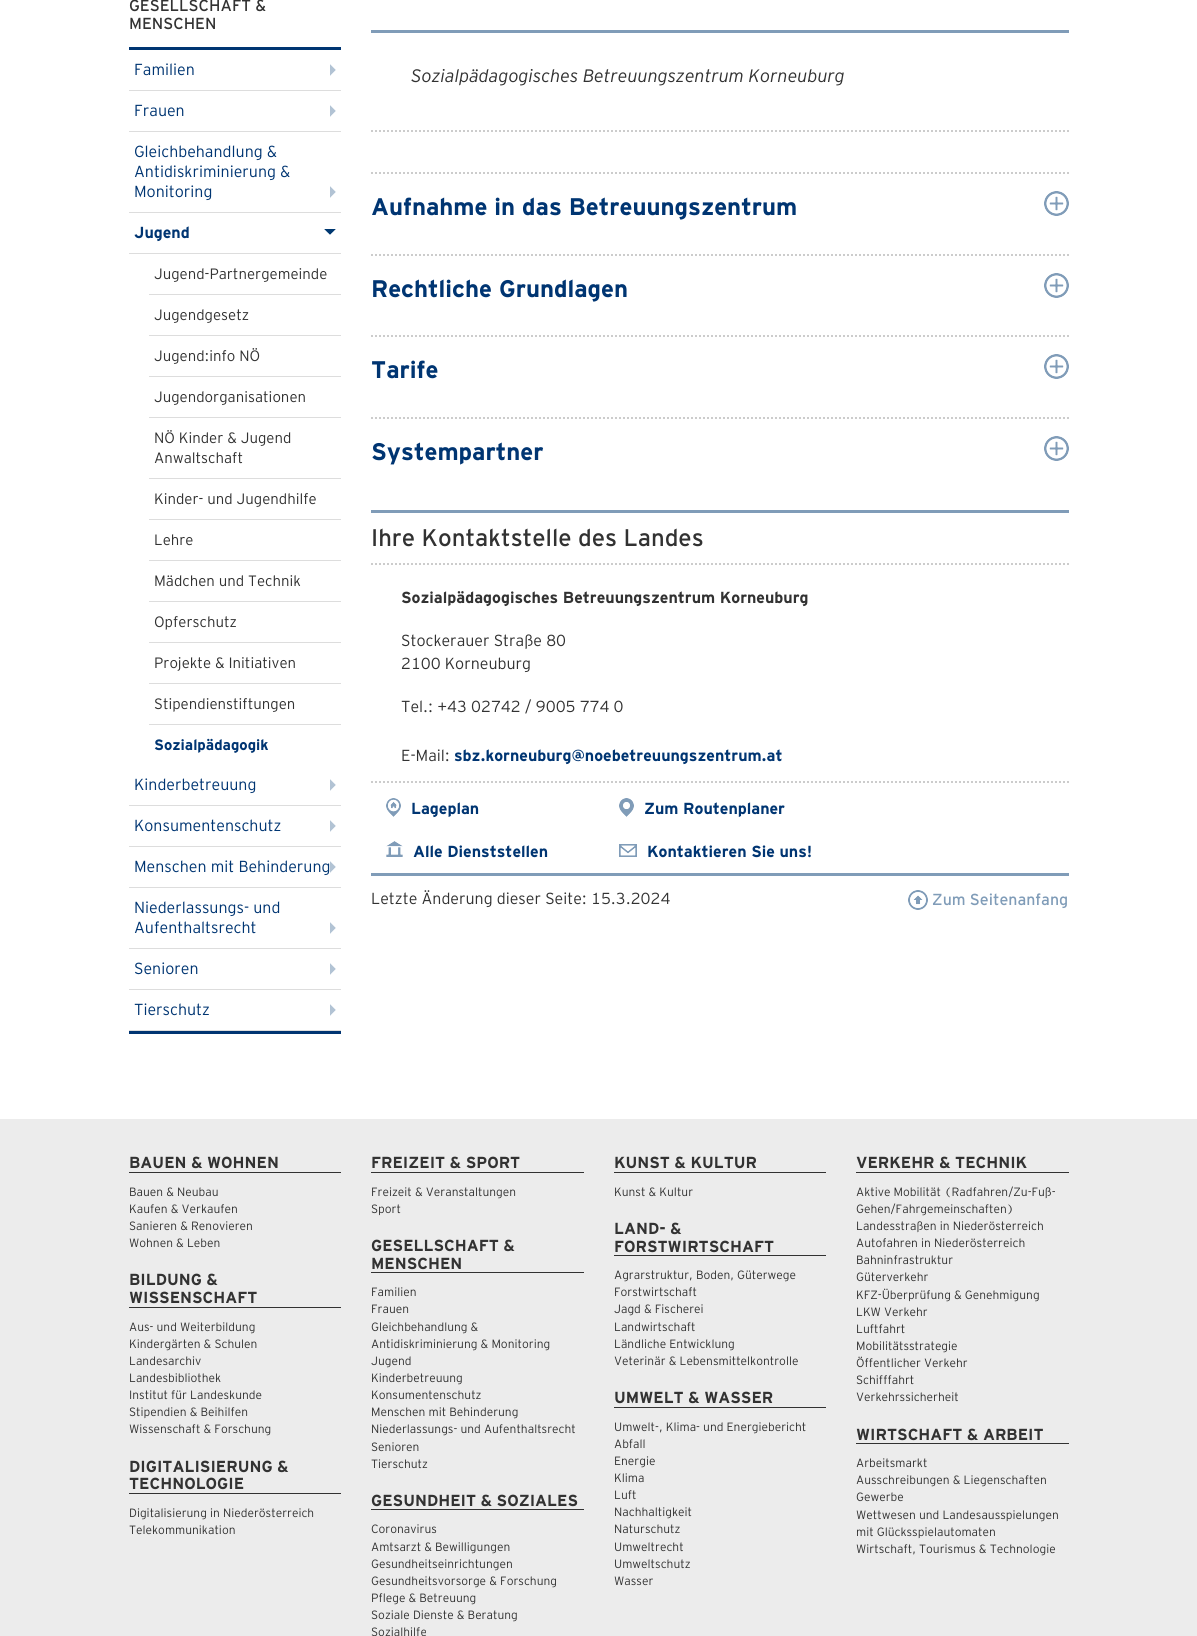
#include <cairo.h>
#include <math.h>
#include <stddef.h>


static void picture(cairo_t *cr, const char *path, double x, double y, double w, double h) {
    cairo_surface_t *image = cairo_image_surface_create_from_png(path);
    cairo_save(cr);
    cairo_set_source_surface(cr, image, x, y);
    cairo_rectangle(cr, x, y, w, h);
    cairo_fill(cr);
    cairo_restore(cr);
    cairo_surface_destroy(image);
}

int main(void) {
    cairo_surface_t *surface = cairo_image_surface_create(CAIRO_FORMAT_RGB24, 1197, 1636);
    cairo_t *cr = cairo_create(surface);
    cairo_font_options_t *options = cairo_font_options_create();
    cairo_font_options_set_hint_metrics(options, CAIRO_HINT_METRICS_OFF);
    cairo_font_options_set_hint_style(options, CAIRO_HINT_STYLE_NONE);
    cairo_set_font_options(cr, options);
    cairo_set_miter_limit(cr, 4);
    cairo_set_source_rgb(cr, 1, 1, 1);
    cairo_paint(cr);
    cairo_select_font_face(cr, "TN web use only", CAIRO_FONT_SLANT_NORMAL, CAIRO_FONT_WEIGHT_NORMAL);
    cairo_set_font_size(cr, 16);
    cairo_set_source_rgb(cr, 0.196, 0.196, 0.196);
    cairo_move_to(cr, 129, 11);
    cairo_show_text(cr, "GESELLSCHAFT &");
    cairo_move_to(cr, 129, 29);
    cairo_show_text(cr, "MENSCHEN");
    cairo_set_source_rgb(cr, 0, 0.208, 0.447);
    cairo_rectangle(cr, 129, 47, 212, 3);
    cairo_fill(cr);
    cairo_rectangle(cr, 129, 1031, 212, 3);
    cairo_fill(cr);
    cairo_set_source_rgb(cr, 0.867, 0.867, 0.867);
    cairo_rectangle(cr, 129, 90, 212, 1);
    cairo_fill(cr);
    cairo_select_font_face(cr, "TN web use only Light", CAIRO_FONT_SLANT_NORMAL, CAIRO_FONT_WEIGHT_NORMAL);
    cairo_set_source_rgb(cr, 0, 0.208, 0.447);
    cairo_move_to(cr, 134, 75);
    cairo_show_text(cr, "Familien");
    picture(cr, "img1.png", 330, 64, 6, 12);
    cairo_set_source_rgb(cr, 0.867, 0.867, 0.867);
    cairo_rectangle(cr, 129, 131, 212, 1);
    cairo_fill(cr);
    cairo_set_source_rgb(cr, 0, 0.208, 0.447);
    cairo_move_to(cr, 134, 116);
    cairo_show_text(cr, "Frauen");
    picture(cr, "img1.png", 330, 105, 6, 12);
    cairo_set_source_rgb(cr, 0.867, 0.867, 0.867);
    cairo_rectangle(cr, 129, 212, 212, 1);
    cairo_fill(cr);
    cairo_set_source_rgb(cr, 0, 0.208, 0.447);
    cairo_move_to(cr, 134, 157);
    cairo_show_text(cr, "Gleichbehandlung &");
    cairo_move_to(cr, 134, 177);
    cairo_show_text(cr, "Antidiskriminierung &");
    cairo_move_to(cr, 134, 197);
    cairo_show_text(cr, "Monitoring");
    picture(cr, "img1.png", 330, 186, 6, 12);
    cairo_set_source_rgb(cr, 0.867, 0.867, 0.867);
    cairo_rectangle(cr, 129, 253, 212, 1);
    cairo_fill(cr);
    cairo_select_font_face(cr, "TN web use only", CAIRO_FONT_SLANT_NORMAL, CAIRO_FONT_WEIGHT_BOLD);
    cairo_set_source_rgb(cr, 0, 0.208, 0.447);
    cairo_move_to(cr, 134, 238);
    cairo_show_text(cr, "Jugend");
    picture(cr, "img2.png", 324, 229, 12, 6);
    cairo_set_source_rgb(cr, 0.867, 0.867, 0.867);
    cairo_rectangle(cr, 149, 294, 192, 1);
    cairo_fill(cr);
    cairo_select_font_face(cr, "TN web use only Light", CAIRO_FONT_SLANT_NORMAL, CAIRO_FONT_WEIGHT_NORMAL);
    cairo_set_font_size(cr, 15);
    cairo_set_source_rgb(cr, 0.196, 0.196, 0.196);
    cairo_move_to(cr, 154, 279);
    cairo_show_text(cr, "Jugend-Partnergemeinde");
    cairo_set_source_rgb(cr, 0.867, 0.867, 0.867);
    cairo_rectangle(cr, 149, 335, 192, 1);
    cairo_fill(cr);
    cairo_set_source_rgb(cr, 0.196, 0.196, 0.196);
    cairo_move_to(cr, 154, 320);
    cairo_show_text(cr, "Jugendgesetz");
    cairo_set_source_rgb(cr, 0.867, 0.867, 0.867);
    cairo_rectangle(cr, 149, 376, 192, 1);
    cairo_fill(cr);
    cairo_set_source_rgb(cr, 0.196, 0.196, 0.196);
    cairo_move_to(cr, 154, 361);
    cairo_show_text(cr, "Jugend:info NÖ");
    cairo_set_source_rgb(cr, 0.867, 0.867, 0.867);
    cairo_rectangle(cr, 149, 417, 192, 1);
    cairo_fill(cr);
    cairo_set_source_rgb(cr, 0.196, 0.196, 0.196);
    cairo_move_to(cr, 154, 402);
    cairo_show_text(cr, "Jugendorganisationen");
    cairo_set_source_rgb(cr, 0.867, 0.867, 0.867);
    cairo_rectangle(cr, 149, 478, 192, 1);
    cairo_fill(cr);
    cairo_set_source_rgb(cr, 0.196, 0.196, 0.196);
    cairo_move_to(cr, 154, 443);
    cairo_show_text(cr, "NÖ Kinder & Jugend");
    cairo_move_to(cr, 154, 463);
    cairo_show_text(cr, "Anwaltschaft");
    cairo_set_source_rgb(cr, 0.867, 0.867, 0.867);
    cairo_rectangle(cr, 149, 519, 192, 1);
    cairo_fill(cr);
    cairo_set_source_rgb(cr, 0.196, 0.196, 0.196);
    cairo_move_to(cr, 154, 504);
    cairo_show_text(cr, "Kinder- und Jugendhilfe");
    cairo_set_source_rgb(cr, 0.867, 0.867, 0.867);
    cairo_rectangle(cr, 149, 560, 192, 1);
    cairo_fill(cr);
    cairo_set_source_rgb(cr, 0.196, 0.196, 0.196);
    cairo_move_to(cr, 154, 545);
    cairo_show_text(cr, "Lehre");
    cairo_set_source_rgb(cr, 0.867, 0.867, 0.867);
    cairo_rectangle(cr, 149, 601, 192, 1);
    cairo_fill(cr);
    cairo_set_source_rgb(cr, 0.196, 0.196, 0.196);
    cairo_move_to(cr, 154, 586);
    cairo_show_text(cr, "Mädchen und Technik");
    cairo_set_source_rgb(cr, 0.867, 0.867, 0.867);
    cairo_rectangle(cr, 149, 642, 192, 1);
    cairo_fill(cr);
    cairo_set_source_rgb(cr, 0.196, 0.196, 0.196);
    cairo_move_to(cr, 154, 627);
    cairo_show_text(cr, "Opferschutz");
    cairo_set_source_rgb(cr, 0.867, 0.867, 0.867);
    cairo_rectangle(cr, 149, 683, 192, 1);
    cairo_fill(cr);
    cairo_set_source_rgb(cr, 0.196, 0.196, 0.196);
    cairo_move_to(cr, 154, 668);
    cairo_show_text(cr, "Projekte & Initiativen");
    cairo_set_source_rgb(cr, 0.867, 0.867, 0.867);
    cairo_rectangle(cr, 149, 724, 192, 1);
    cairo_fill(cr);
    cairo_set_source_rgb(cr, 0.196, 0.196, 0.196);
    cairo_move_to(cr, 154, 709);
    cairo_show_text(cr, "Stipendienstiftungen");
    cairo_select_font_face(cr, "TN web use only", CAIRO_FONT_SLANT_NORMAL, CAIRO_FONT_WEIGHT_BOLD);
    cairo_set_source_rgb(cr, 0, 0.208, 0.447);
    cairo_move_to(cr, 154, 750);
    cairo_show_text(cr, "Sozialpädagogik");
    cairo_set_source_rgb(cr, 0.867, 0.867, 0.867);
    cairo_rectangle(cr, 129, 805, 212, 1);
    cairo_fill(cr);
    cairo_select_font_face(cr, "TN web use only Light", CAIRO_FONT_SLANT_NORMAL, CAIRO_FONT_WEIGHT_NORMAL);
    cairo_set_font_size(cr, 16);
    cairo_set_source_rgb(cr, 0, 0.208, 0.447);
    cairo_move_to(cr, 134, 790);
    cairo_show_text(cr, "Kinderbetreuung");
    picture(cr, "img1.png", 330, 779, 6, 12);
    cairo_set_source_rgb(cr, 0.867, 0.867, 0.867);
    cairo_rectangle(cr, 129, 846, 212, 1);
    cairo_fill(cr);
    cairo_set_source_rgb(cr, 0, 0.208, 0.447);
    cairo_move_to(cr, 134, 831);
    cairo_show_text(cr, "Konsumentenschutz");
    picture(cr, "img1.png", 330, 820, 6, 12);
    cairo_set_source_rgb(cr, 0.867, 0.867, 0.867);
    cairo_rectangle(cr, 129, 887, 212, 1);
    cairo_fill(cr);
    cairo_set_source_rgb(cr, 0, 0.208, 0.447);
    cairo_move_to(cr, 134, 872);
    cairo_show_text(cr, "Menschen mit Behinderung");
    picture(cr, "img1.png", 330, 861, 6, 12);
    cairo_set_source_rgb(cr, 0.867, 0.867, 0.867);
    cairo_rectangle(cr, 129, 948, 212, 1);
    cairo_fill(cr);
    cairo_set_source_rgb(cr, 0, 0.208, 0.447);
    cairo_move_to(cr, 134, 913);
    cairo_show_text(cr, "Niederlassungs- und");
    cairo_move_to(cr, 134, 933);
    cairo_show_text(cr, "Aufenthaltsrecht");
    picture(cr, "img1.png", 330, 922, 6, 12);
    cairo_set_source_rgb(cr, 0.867, 0.867, 0.867);
    cairo_rectangle(cr, 129, 989, 212, 1);
    cairo_fill(cr);
    cairo_set_source_rgb(cr, 0, 0.208, 0.447);
    cairo_move_to(cr, 134, 974);
    cairo_show_text(cr, "Senioren");
    picture(cr, "img1.png", 330, 963, 6, 12);
    cairo_set_source_rgb(cr, 0.867, 0.867, 0.867);
    cairo_rectangle(cr, 129, 1030, 212, 1);
    cairo_fill(cr);
    cairo_set_source_rgb(cr, 0, 0.208, 0.447);
    cairo_move_to(cr, 134, 1015);
    cairo_show_text(cr, "Tierschutz");
    picture(cr, "img1.png", 330, 1004, 6, 12);
    cairo_set_source_rgb(cr, 0.502, 0.612, 0.722);
    cairo_rectangle(cr, 371, 30, 698, 3);
    cairo_fill(cr);
    cairo_new_path(cr);
    cairo_move_to(cr, 371, 131);
    cairo_line_to(cr, 1069, 131);
    cairo_set_source_rgb(cr, 0.8, 0.8, 0.8);
    cairo_set_dash(cr, (double[]){2, 2}, 2, 0);
    cairo_stroke(cr);
    cairo_select_font_face(cr, "TN web use only Light", CAIRO_FONT_SLANT_ITALIC, CAIRO_FONT_WEIGHT_NORMAL);
    cairo_set_font_size(cr, 18);
    cairo_set_source_rgb(cr, 0.196, 0.196, 0.196);
    cairo_move_to(cr, 411, 82);
    cairo_show_text(cr, "Sozialpädagogisches Betreuungszentrum Korneuburg");
    cairo_new_path(cr);
    cairo_move_to(cr, 371, 173);
    cairo_line_to(cr, 1069, 173);
    cairo_set_source_rgb(cr, 0.8, 0.8, 0.8);
    cairo_stroke(cr);
    cairo_select_font_face(cr, "TN web use only", CAIRO_FONT_SLANT_NORMAL, CAIRO_FONT_WEIGHT_BOLD);
    cairo_set_font_size(cr, 24);
    cairo_set_source_rgb(cr, 0, 0.208, 0.447);
    cairo_move_to(cr, 371, 215);
    cairo_show_text(cr, "Aufnahme in das Betreuungszentrum");
    picture(cr, "img3.png", 1044, 191, 25, 25);
    cairo_new_path(cr);
    cairo_move_to(cr, 371, 255);
    cairo_line_to(cr, 1069, 255);
    cairo_set_source_rgb(cr, 0.8, 0.8, 0.8);
    cairo_stroke(cr);
    cairo_set_source_rgb(cr, 0, 0.208, 0.447);
    cairo_move_to(cr, 371, 297);
    cairo_show_text(cr, "Rechtliche Grundlagen");
    picture(cr, "img3.png", 1044, 273, 25, 25);
    cairo_new_path(cr);
    cairo_move_to(cr, 371, 336);
    cairo_line_to(cr, 1069, 336);
    cairo_set_source_rgb(cr, 0.8, 0.8, 0.8);
    cairo_stroke(cr);
    cairo_set_source_rgb(cr, 0, 0.208, 0.447);
    cairo_move_to(cr, 371, 378);
    cairo_show_text(cr, "Tarife");
    picture(cr, "img3.png", 1044, 354, 25, 25);
    cairo_new_path(cr);
    cairo_move_to(cr, 371, 418);
    cairo_line_to(cr, 1069, 418);
    cairo_set_source_rgb(cr, 0.8, 0.8, 0.8);
    cairo_stroke(cr);
    cairo_set_source_rgb(cr, 0, 0.208, 0.447);
    cairo_move_to(cr, 371, 460);
    cairo_show_text(cr, "Systempartner");
    picture(cr, "img3.png", 1044, 436, 25, 25);
    cairo_set_source_rgb(cr, 0.502, 0.612, 0.722);
    cairo_rectangle(cr, 371, 510, 698, 3);
    cairo_fill(cr);
    cairo_select_font_face(cr, "TN web use only", CAIRO_FONT_SLANT_NORMAL, CAIRO_FONT_WEIGHT_NORMAL);
    cairo_set_source_rgb(cr, 0.196, 0.196, 0.196);
    cairo_move_to(cr, 371, 546);
    cairo_show_text(cr, "Ihre Kontaktstelle des Landes");
    cairo_new_path(cr);
    cairo_move_to(cr, 371, 564);
    cairo_line_to(cr, 1069, 564);
    cairo_set_source_rgb(cr, 0.8, 0.8, 0.8);
    cairo_stroke(cr);
    cairo_select_font_face(cr, "TN web use only", CAIRO_FONT_SLANT_NORMAL, CAIRO_FONT_WEIGHT_BOLD);
    cairo_set_font_size(cr, 16);
    cairo_set_source_rgb(cr, 0.196, 0.196, 0.196);
    cairo_move_to(cr, 401, 603);
    cairo_show_text(cr, "Sozialpädagogisches Betreuungszentrum Korneuburg");
    cairo_select_font_face(cr, "TN web use only Light", CAIRO_FONT_SLANT_NORMAL, CAIRO_FONT_WEIGHT_NORMAL);
    cairo_move_to(cr, 401, 646);
    cairo_show_text(cr, "Stockerauer Straße 80");
    cairo_move_to(cr, 401, 669);
    cairo_show_text(cr, "2100 Korneuburg");
    cairo_move_to(cr, 401, 712);
    cairo_show_text(cr, "Tel.: +43 02742 / 9005 774 0");
    cairo_move_to(cr, 401, 761);
    cairo_show_text(cr, "E-Mail:");
    cairo_select_font_face(cr, "TN web use only", CAIRO_FONT_SLANT_NORMAL, CAIRO_FONT_WEIGHT_BOLD);
    cairo_set_source_rgb(cr, 0, 0.208, 0.447);
    cairo_move_to(cr, 454, 761);
    cairo_show_text(cr, "sbz.korneuburg@noebetreuungszentrum.at");
    cairo_new_path(cr);
    cairo_move_to(cr, 371, 782);
    cairo_line_to(cr, 1069, 782);
    cairo_set_source_rgb(cr, 0.8, 0.8, 0.8);
    cairo_stroke(cr);
    picture(cr, "img4.png", 386, 798, 15, 19);
    cairo_set_source_rgb(cr, 0, 0.208, 0.447);
    cairo_move_to(cr, 411, 814);
    cairo_show_text(cr, "Lageplan");
    picture(cr, "img5.png", 619, 798, 15, 19);
    cairo_move_to(cr, 644, 814);
    cairo_show_text(cr, "Zum Routenplaner");
    picture(cr, "img6.png", 386, 841, 17, 16);
    cairo_move_to(cr, 413, 857);
    cairo_show_text(cr, "Alle Dienststellen");
    picture(cr, "img7.png", 619, 844, 18, 13);
    cairo_move_to(cr, 647, 857);
    cairo_show_text(cr, "Kontaktieren Sie uns!");
    cairo_set_source_rgb(cr, 0.502, 0.612, 0.722);
    cairo_rectangle(cr, 371, 873, 698, 3);
    cairo_fill(cr);
    cairo_select_font_face(cr, "TN web use only Light", CAIRO_FONT_SLANT_NORMAL, CAIRO_FONT_WEIGHT_NORMAL);
    cairo_set_source_rgb(cr, 0.196, 0.196, 0.196);
    cairo_move_to(cr, 371, 904);
    cairo_show_text(cr, "Letzte Änderung dieser Seite: 15.3.2024");
    picture(cr, "img8.png", 908, 890, 20, 20);
    cairo_select_font_face(cr, "TN web use only", CAIRO_FONT_SLANT_NORMAL, CAIRO_FONT_WEIGHT_NORMAL);
    cairo_set_source_rgb(cr, 0.502, 0.612, 0.722);
    cairo_move_to(cr, 932, 905);
    cairo_show_text(cr, "Zum Seitenanfang");
    cairo_set_source_rgb(cr, 0.922, 0.922, 0.922);
    cairo_rectangle(cr, 0, 1119, 1197, 517);
    cairo_fill(cr);
    cairo_set_source_rgb(cr, 0.196, 0.196, 0.196);
    cairo_rectangle(cr, 129, 1172, 212, 1);
    cairo_fill(cr);
    cairo_select_font_face(cr, "TN web use only", CAIRO_FONT_SLANT_NORMAL, CAIRO_FONT_WEIGHT_BOLD);
    cairo_move_to(cr, 129, 1168);
    cairo_show_text(cr, "BAUEN & WOHNEN");
    cairo_select_font_face(cr, "TN web use only Light", CAIRO_FONT_SLANT_NORMAL, CAIRO_FONT_WEIGHT_NORMAL);
    cairo_set_font_size(cr, 12);
    cairo_move_to(cr, 129, 1196);
    cairo_show_text(cr, "Bauen & Neubau");
    cairo_move_to(cr, 129, 1213);
    cairo_show_text(cr, "Kaufen & Verkaufen");
    cairo_move_to(cr, 129, 1230);
    cairo_show_text(cr, "Sanieren & Renovieren");
    cairo_move_to(cr, 129, 1247);
    cairo_show_text(cr, "Wohnen & Leben");
    cairo_rectangle(cr, 129, 1307, 212, 1);
    cairo_fill(cr);
    cairo_select_font_face(cr, "TN web use only", CAIRO_FONT_SLANT_NORMAL, CAIRO_FONT_WEIGHT_BOLD);
    cairo_set_font_size(cr, 16);
    cairo_move_to(cr, 129, 1285);
    cairo_show_text(cr, "BILDUNG &");
    cairo_move_to(cr, 129, 1303);
    cairo_show_text(cr, "WISSENSCHAFT");
    cairo_select_font_face(cr, "TN web use only Light", CAIRO_FONT_SLANT_NORMAL, CAIRO_FONT_WEIGHT_NORMAL);
    cairo_set_font_size(cr, 12);
    cairo_move_to(cr, 129, 1331);
    cairo_show_text(cr, "Aus- und Weiterbildung");
    cairo_move_to(cr, 129, 1348);
    cairo_show_text(cr, "Kindergärten & Schulen");
    cairo_move_to(cr, 129, 1365);
    cairo_show_text(cr, "Landesarchiv");
    cairo_move_to(cr, 129, 1382);
    cairo_show_text(cr, "Landesbibliothek");
    cairo_move_to(cr, 129, 1399);
    cairo_show_text(cr, "Institut für Landeskunde");
    cairo_move_to(cr, 129, 1416);
    cairo_show_text(cr, "Stipendien & Beihilfen");
    cairo_move_to(cr, 129, 1433);
    cairo_show_text(cr, "Wissenschaft & Forschung");
    cairo_rectangle(cr, 129, 1493, 212, 1);
    cairo_fill(cr);
    cairo_select_font_face(cr, "TN web use only", CAIRO_FONT_SLANT_NORMAL, CAIRO_FONT_WEIGHT_BOLD);
    cairo_set_font_size(cr, 16);
    cairo_move_to(cr, 129, 1472);
    cairo_show_text(cr, "DIGITALISIERUNG &");
    cairo_move_to(cr, 129, 1489);
    cairo_show_text(cr, "TECHNOLOGIE");
    cairo_select_font_face(cr, "TN web use only Light", CAIRO_FONT_SLANT_NORMAL, CAIRO_FONT_WEIGHT_NORMAL);
    cairo_set_font_size(cr, 12);
    cairo_move_to(cr, 129, 1517);
    cairo_show_text(cr, "Digitalisierung in Niederösterreich");
    cairo_move_to(cr, 129, 1534);
    cairo_show_text(cr, "Telekommunikation");
    cairo_rectangle(cr, 371, 1172, 213, 1);
    cairo_fill(cr);
    cairo_select_font_face(cr, "TN web use only", CAIRO_FONT_SLANT_NORMAL, CAIRO_FONT_WEIGHT_BOLD);
    cairo_set_font_size(cr, 16);
    cairo_move_to(cr, 371, 1168);
    cairo_show_text(cr, "FREIZEIT & SPORT");
    cairo_select_font_face(cr, "TN web use only Light", CAIRO_FONT_SLANT_NORMAL, CAIRO_FONT_WEIGHT_NORMAL);
    cairo_set_font_size(cr, 12);
    cairo_move_to(cr, 371, 1196);
    cairo_show_text(cr, "Freizeit & Veranstaltungen");
    cairo_move_to(cr, 371, 1213);
    cairo_show_text(cr, "Sport");
    cairo_rectangle(cr, 371, 1272, 213, 1);
    cairo_fill(cr);
    cairo_select_font_face(cr, "TN web use only", CAIRO_FONT_SLANT_NORMAL, CAIRO_FONT_WEIGHT_BOLD);
    cairo_set_font_size(cr, 16);
    cairo_move_to(cr, 371, 1251);
    cairo_show_text(cr, "GESELLSCHAFT &");
    cairo_move_to(cr, 371, 1269);
    cairo_show_text(cr, "MENSCHEN");
    cairo_select_font_face(cr, "TN web use only Light", CAIRO_FONT_SLANT_NORMAL, CAIRO_FONT_WEIGHT_NORMAL);
    cairo_set_font_size(cr, 12);
    cairo_move_to(cr, 371, 1296);
    cairo_show_text(cr, "Familien");
    cairo_move_to(cr, 371, 1313);
    cairo_show_text(cr, "Frauen");
    cairo_move_to(cr, 371, 1331);
    cairo_show_text(cr, "Gleichbehandlung &");
    cairo_move_to(cr, 371, 1348);
    cairo_show_text(cr, "Antidiskriminierung & Monitoring");
    cairo_move_to(cr, 371, 1365);
    cairo_show_text(cr, "Jugend");
    cairo_move_to(cr, 371, 1382);
    cairo_show_text(cr, "Kinderbetreuung");
    cairo_move_to(cr, 371, 1399);
    cairo_show_text(cr, "Konsumentenschutz");
    cairo_move_to(cr, 371, 1416);
    cairo_show_text(cr, "Menschen mit Behinderung");
    cairo_move_to(cr, 371, 1433);
    cairo_show_text(cr, "Niederlassungs- und Aufenthaltsrecht");
    cairo_move_to(cr, 371, 1451);
    cairo_show_text(cr, "Senioren");
    cairo_move_to(cr, 371, 1468);
    cairo_show_text(cr, "Tierschutz");
    cairo_rectangle(cr, 371, 1509, 213, 1);
    cairo_fill(cr);
    cairo_select_font_face(cr, "TN web use only", CAIRO_FONT_SLANT_NORMAL, CAIRO_FONT_WEIGHT_BOLD);
    cairo_set_font_size(cr, 16);
    cairo_move_to(cr, 371, 1506);
    cairo_show_text(cr, "GESUNDHEIT & SOZIALES");
    cairo_select_font_face(cr, "TN web use only Light", CAIRO_FONT_SLANT_NORMAL, CAIRO_FONT_WEIGHT_NORMAL);
    cairo_set_font_size(cr, 12);
    cairo_move_to(cr, 371, 1533);
    cairo_show_text(cr, "Coronavirus");
    cairo_move_to(cr, 371, 1551);
    cairo_show_text(cr, "Amtsarzt & Bewilligungen");
    cairo_move_to(cr, 371, 1568);
    cairo_show_text(cr, "Gesundheitseinrichtungen");
    cairo_move_to(cr, 371, 1585);
    cairo_show_text(cr, "Gesundheitsvorsorge & Forschung");
    cairo_move_to(cr, 371, 1602);
    cairo_show_text(cr, "Pflege & Betreuung");
    cairo_move_to(cr, 371, 1619);
    cairo_show_text(cr, "Soziale Dienste & Beratung");
    cairo_move_to(cr, 371, 1636);
    cairo_show_text(cr, "Sozialhilfe");
    cairo_rectangle(cr, 614, 1172, 212, 1);
    cairo_fill(cr);
    cairo_select_font_face(cr, "TN web use only", CAIRO_FONT_SLANT_NORMAL, CAIRO_FONT_WEIGHT_BOLD);
    cairo_set_font_size(cr, 16);
    cairo_move_to(cr, 614, 1168);
    cairo_show_text(cr, "KUNST & KULTUR");
    cairo_select_font_face(cr, "TN web use only Light", CAIRO_FONT_SLANT_NORMAL, CAIRO_FONT_WEIGHT_NORMAL);
    cairo_set_font_size(cr, 12);
    cairo_move_to(cr, 614, 1196);
    cairo_show_text(cr, "Kunst & Kultur");
    cairo_rectangle(cr, 614, 1255, 212, 1);
    cairo_fill(cr);
    cairo_select_font_face(cr, "TN web use only", CAIRO_FONT_SLANT_NORMAL, CAIRO_FONT_WEIGHT_BOLD);
    cairo_set_font_size(cr, 16);
    cairo_move_to(cr, 614, 1234);
    cairo_show_text(cr, "LAND- &");
    cairo_move_to(cr, 614, 1252);
    cairo_show_text(cr, "FORSTWIRTSCHAFT");
    cairo_select_font_face(cr, "TN web use only Light", CAIRO_FONT_SLANT_NORMAL, CAIRO_FONT_WEIGHT_NORMAL);
    cairo_set_font_size(cr, 12);
    cairo_move_to(cr, 614, 1279);
    cairo_show_text(cr, "Agrarstruktur, Boden, Güterwege");
    cairo_move_to(cr, 614, 1296);
    cairo_show_text(cr, "Forstwirtschaft");
    cairo_move_to(cr, 614, 1313);
    cairo_show_text(cr, "Jagd & Fischerei");
    cairo_move_to(cr, 614, 1331);
    cairo_show_text(cr, "Landwirtschaft");
    cairo_move_to(cr, 614, 1348);
    cairo_show_text(cr, "Ländliche Entwicklung");
    cairo_move_to(cr, 614, 1365);
    cairo_show_text(cr, "Veterinär & Lebensmittelkontrolle");
    cairo_rectangle(cr, 614, 1407, 212, 1);
    cairo_fill(cr);
    cairo_select_font_face(cr, "TN web use only", CAIRO_FONT_SLANT_NORMAL, CAIRO_FONT_WEIGHT_BOLD);
    cairo_set_font_size(cr, 16);
    cairo_move_to(cr, 614, 1403);
    cairo_show_text(cr, "UMWELT & WASSER");
    cairo_select_font_face(cr, "TN web use only Light", CAIRO_FONT_SLANT_NORMAL, CAIRO_FONT_WEIGHT_NORMAL);
    cairo_set_font_size(cr, 12);
    cairo_move_to(cr, 614, 1431);
    cairo_show_text(cr, "Umwelt-, Klima- und Energiebericht");
    cairo_move_to(cr, 614, 1448);
    cairo_show_text(cr, "Abfall");
    cairo_move_to(cr, 614, 1465);
    cairo_show_text(cr, "Energie");
    cairo_move_to(cr, 614, 1482);
    cairo_show_text(cr, "Klima");
    cairo_move_to(cr, 614, 1499);
    cairo_show_text(cr, "Luft");
    cairo_move_to(cr, 614, 1516);
    cairo_show_text(cr, "Nachhaltigkeit");
    cairo_move_to(cr, 614, 1533);
    cairo_show_text(cr, "Naturschutz");
    cairo_move_to(cr, 614, 1551);
    cairo_show_text(cr, "Umweltrecht");
    cairo_move_to(cr, 614, 1568);
    cairo_show_text(cr, "Umweltschutz");
    cairo_move_to(cr, 614, 1585);
    cairo_show_text(cr, "Wasser");
    cairo_rectangle(cr, 856, 1172, 213, 1);
    cairo_fill(cr);
    cairo_select_font_face(cr, "TN web use only", CAIRO_FONT_SLANT_NORMAL, CAIRO_FONT_WEIGHT_BOLD);
    cairo_set_font_size(cr, 16);
    cairo_move_to(cr, 856, 1168);
    cairo_show_text(cr, "VERKEHR & TECHNIK");
    cairo_select_font_face(cr, "TN web use only Light", CAIRO_FONT_SLANT_NORMAL, CAIRO_FONT_WEIGHT_NORMAL);
    cairo_set_font_size(cr, 12);
    cairo_move_to(cr, 856, 1196);
    cairo_show_text(cr, "Aktive Mobilität (Radfahren/Zu-Fuß-");
    cairo_move_to(cr, 856, 1213);
    cairo_show_text(cr, "Gehen/Fahrgemeinschaften)");
    cairo_move_to(cr, 856, 1230);
    cairo_show_text(cr, "Landesstraßen in Niederösterreich");
    cairo_move_to(cr, 856, 1247);
    cairo_show_text(cr, "Autofahren in Niederösterreich");
    cairo_move_to(cr, 856, 1264);
    cairo_show_text(cr, "Bahninfrastruktur");
    cairo_move_to(cr, 856, 1281);
    cairo_show_text(cr, "Güterverkehr");
    cairo_move_to(cr, 856, 1299);
    cairo_show_text(cr, "KFZ-Überprüfung & Genehmigung");
    cairo_move_to(cr, 856, 1316);
    cairo_show_text(cr, "LKW Verkehr");
    cairo_move_to(cr, 856, 1333);
    cairo_show_text(cr, "Luftfahrt");
    cairo_move_to(cr, 856, 1350);
    cairo_show_text(cr, "Mobilitätsstrategie");
    cairo_move_to(cr, 856, 1367);
    cairo_show_text(cr, "Öffentlicher Verkehr");
    cairo_move_to(cr, 856, 1384);
    cairo_show_text(cr, "Schifffahrt");
    cairo_move_to(cr, 856, 1401);
    cairo_show_text(cr, "Verkehrssicherheit");
    cairo_rectangle(cr, 856, 1443, 213, 1);
    cairo_fill(cr);
    cairo_select_font_face(cr, "TN web use only", CAIRO_FONT_SLANT_NORMAL, CAIRO_FONT_WEIGHT_BOLD);
    cairo_set_font_size(cr, 16);
    cairo_move_to(cr, 856, 1440);
    cairo_show_text(cr, "WIRTSCHAFT & ARBEIT");
    cairo_select_font_face(cr, "TN web use only Light", CAIRO_FONT_SLANT_NORMAL, CAIRO_FONT_WEIGHT_NORMAL);
    cairo_set_font_size(cr, 12);
    cairo_move_to(cr, 856, 1467);
    cairo_show_text(cr, "Arbeitsmarkt");
    cairo_move_to(cr, 856, 1484);
    cairo_show_text(cr, "Ausschreibungen & Liegenschaften");
    cairo_move_to(cr, 856, 1501);
    cairo_show_text(cr, "Gewerbe");
    cairo_move_to(cr, 856, 1519);
    cairo_show_text(cr, "Wettwesen und Landesausspielungen");
    cairo_move_to(cr, 856, 1536);
    cairo_show_text(cr, "mit Glücksspielautomaten");
    cairo_move_to(cr, 856, 1553);
    cairo_show_text(cr, "Wirtschaft, Tourismus & Technologie");
    cairo_surface_write_to_png(surface, "page.png");
    cairo_font_options_destroy(options);
    cairo_destroy(cr);
    cairo_surface_destroy(surface);
    return 0;
}
